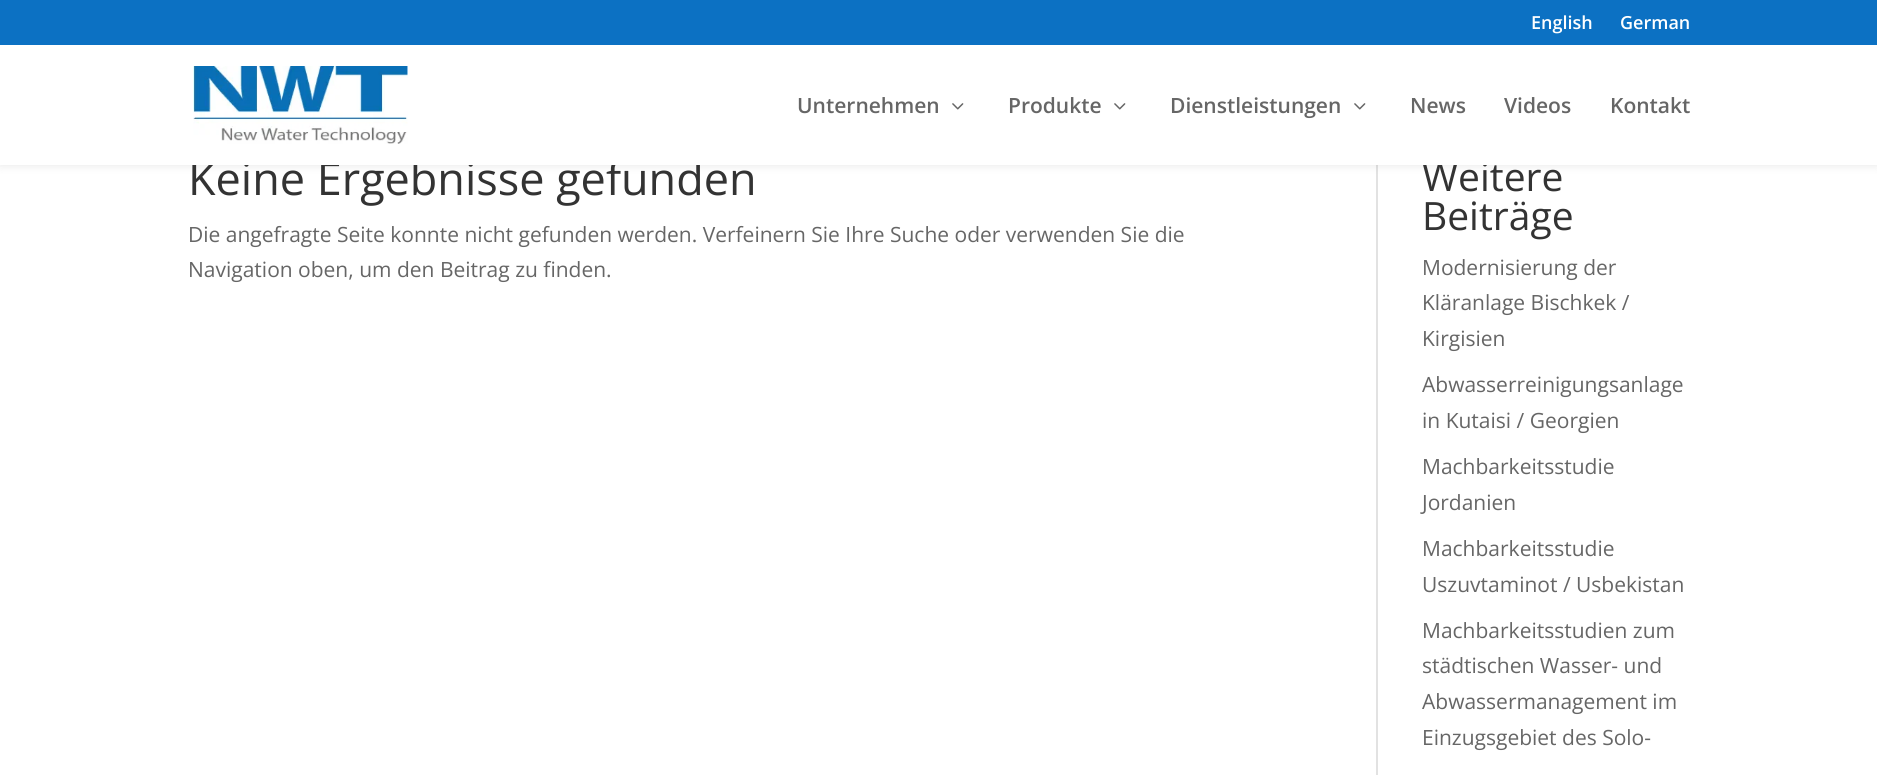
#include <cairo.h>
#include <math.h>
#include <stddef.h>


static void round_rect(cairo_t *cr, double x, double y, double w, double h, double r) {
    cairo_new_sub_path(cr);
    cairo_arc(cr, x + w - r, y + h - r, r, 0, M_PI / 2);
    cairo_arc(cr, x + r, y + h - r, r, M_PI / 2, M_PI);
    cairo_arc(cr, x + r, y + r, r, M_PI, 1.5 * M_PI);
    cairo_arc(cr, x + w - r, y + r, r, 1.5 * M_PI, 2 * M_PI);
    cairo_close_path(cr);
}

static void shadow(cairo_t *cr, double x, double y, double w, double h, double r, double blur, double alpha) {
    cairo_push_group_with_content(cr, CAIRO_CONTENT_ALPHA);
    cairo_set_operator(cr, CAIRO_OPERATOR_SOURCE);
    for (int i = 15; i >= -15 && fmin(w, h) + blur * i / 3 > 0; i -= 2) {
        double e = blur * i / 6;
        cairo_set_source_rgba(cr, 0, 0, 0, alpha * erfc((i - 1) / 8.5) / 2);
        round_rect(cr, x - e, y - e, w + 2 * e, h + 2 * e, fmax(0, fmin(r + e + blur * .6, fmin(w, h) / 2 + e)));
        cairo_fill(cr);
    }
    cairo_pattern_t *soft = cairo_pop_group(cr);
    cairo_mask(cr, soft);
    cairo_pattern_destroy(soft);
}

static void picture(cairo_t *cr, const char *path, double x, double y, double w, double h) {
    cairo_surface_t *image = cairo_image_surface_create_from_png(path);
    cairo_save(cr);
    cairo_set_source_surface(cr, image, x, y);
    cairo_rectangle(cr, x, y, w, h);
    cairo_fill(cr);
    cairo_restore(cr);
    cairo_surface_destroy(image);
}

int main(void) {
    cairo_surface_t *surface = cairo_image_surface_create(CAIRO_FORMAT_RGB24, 1877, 775);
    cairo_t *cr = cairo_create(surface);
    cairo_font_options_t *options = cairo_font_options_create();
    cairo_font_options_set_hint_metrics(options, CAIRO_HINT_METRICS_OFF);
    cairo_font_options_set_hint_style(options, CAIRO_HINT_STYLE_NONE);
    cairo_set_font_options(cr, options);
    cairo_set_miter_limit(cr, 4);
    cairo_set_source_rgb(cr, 1, 1, 1);
    cairo_paint(cr);
    cairo_set_source_rgb(cr, 0.886, 0.886, 0.886);
    cairo_rectangle(cr, 1376, 165, 2, 610);
    cairo_fill(cr);
    cairo_set_source_rgb(cr, 0, 0, 0);
    shadow(cr, 0, 45, 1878, 120, 0, 5, 0.1);
    cairo_set_source_rgb(cr, 0.047, 0.443, 0.765);
    cairo_rectangle(cr, 0, 0, 1877, 45);
    cairo_fill(cr);
    cairo_select_font_face(cr, "Open Sans SemiBold", CAIRO_FONT_SLANT_NORMAL, CAIRO_FONT_WEIGHT_NORMAL);
    cairo_set_font_size(cr, 18);
    cairo_set_source_rgb(cr, 1, 1, 1);
    cairo_move_to(cr, 1531, 29);
    cairo_show_text(cr, "English");
    cairo_move_to(cr, 1620, 29);
    cairo_show_text(cr, "German");
    cairo_select_font_face(cr, "Open Sans", CAIRO_FONT_SLANT_NORMAL, CAIRO_FONT_WEIGHT_NORMAL);
    cairo_set_font_size(cr, 45);
    cairo_set_source_rgb(cr, 0.2, 0.2, 0.2);
    cairo_move_to(cr, 188, 195);
    cairo_show_text(cr, "Keine Ergebnisse gefunden");
    cairo_set_font_size(cr, 39);
    cairo_move_to(cr, 1422, 191);
    cairo_show_text(cr, "Weitere");
    cairo_set_source_rgb(cr, 1, 1, 1);
    cairo_rectangle(cr, 0, 45, 1877, 120);
    cairo_fill(cr);
    picture(cr, "img1.png", 193, 66, 215, 78);
    cairo_select_font_face(cr, "Open Sans SemiBold", CAIRO_FONT_SLANT_NORMAL, CAIRO_FONT_WEIGHT_NORMAL);
    cairo_set_font_size(cr, 21);
    cairo_set_source_rgb(cr, 0.4, 0.4, 0.4);
    cairo_move_to(cr, 797, 113);
    cairo_show_text(cr, "Unternehmen");
    picture(cr, "img2.png", 952, 103, 12, 7);
    cairo_move_to(cr, 1008, 113);
    cairo_show_text(cr, "Produkte");
    picture(cr, "img2.png", 1114, 103, 12, 7);
    cairo_move_to(cr, 1170, 113);
    cairo_show_text(cr, "Dienstleistungen");
    picture(cr, "img2.png", 1354, 103, 12, 7);
    cairo_move_to(cr, 1410, 113);
    cairo_show_text(cr, "News");
    cairo_move_to(cr, 1504, 113);
    cairo_show_text(cr, "Videos");
    cairo_move_to(cr, 1610, 113);
    cairo_show_text(cr, "Kontakt");
    cairo_select_font_face(cr, "Open Sans", CAIRO_FONT_SLANT_NORMAL, CAIRO_FONT_WEIGHT_NORMAL);
    cairo_move_to(cr, 188, 242);
    cairo_show_text(cr, "Die angefragte Seite konnte nicht gefunden werden. Verfeinern Sie Ihre Suche oder verwenden Sie die");
    cairo_move_to(cr, 188, 277);
    cairo_show_text(cr, "Navigation oben, um den Beitrag zu finden.");
    cairo_set_font_size(cr, 39);
    cairo_set_source_rgb(cr, 0.2, 0.2, 0.2);
    cairo_move_to(cr, 1422, 230);
    cairo_show_text(cr, "Beiträge");
    cairo_set_font_size(cr, 21);
    cairo_set_source_rgb(cr, 0.4, 0.4, 0.4);
    cairo_move_to(cr, 1422, 275);
    cairo_show_text(cr, "Modernisierung der");
    cairo_move_to(cr, 1422, 310);
    cairo_show_text(cr, "Kläranlage Bischkek /");
    cairo_move_to(cr, 1422, 346);
    cairo_show_text(cr, "Kirgisien");
    cairo_move_to(cr, 1422, 392);
    cairo_show_text(cr, "Abwasserreinigungsanlage");
    cairo_move_to(cr, 1422, 428);
    cairo_show_text(cr, "in Kutaisi / Georgien");
    cairo_move_to(cr, 1422, 474);
    cairo_show_text(cr, "Machbarkeitsstudie");
    cairo_move_to(cr, 1422, 510);
    cairo_show_text(cr, "Jordanien");
    cairo_move_to(cr, 1422, 556);
    cairo_show_text(cr, "Machbarkeitsstudie");
    cairo_move_to(cr, 1422, 592);
    cairo_show_text(cr, "Uszuvtaminot / Usbekistan");
    cairo_move_to(cr, 1422, 638);
    cairo_show_text(cr, "Machbarkeitsstudien zum");
    cairo_move_to(cr, 1422, 673);
    cairo_show_text(cr, "städtischen Wasser- und");
    cairo_move_to(cr, 1422, 709);
    cairo_show_text(cr, "Abwassermanagement im");
    cairo_move_to(cr, 1422, 745);
    cairo_show_text(cr, "Einzugsgebiet des Solo-");
    cairo_surface_write_to_png(surface, "page.png");
    cairo_font_options_destroy(options);
    cairo_destroy(cr);
    cairo_surface_destroy(surface);
    return 0;
}
